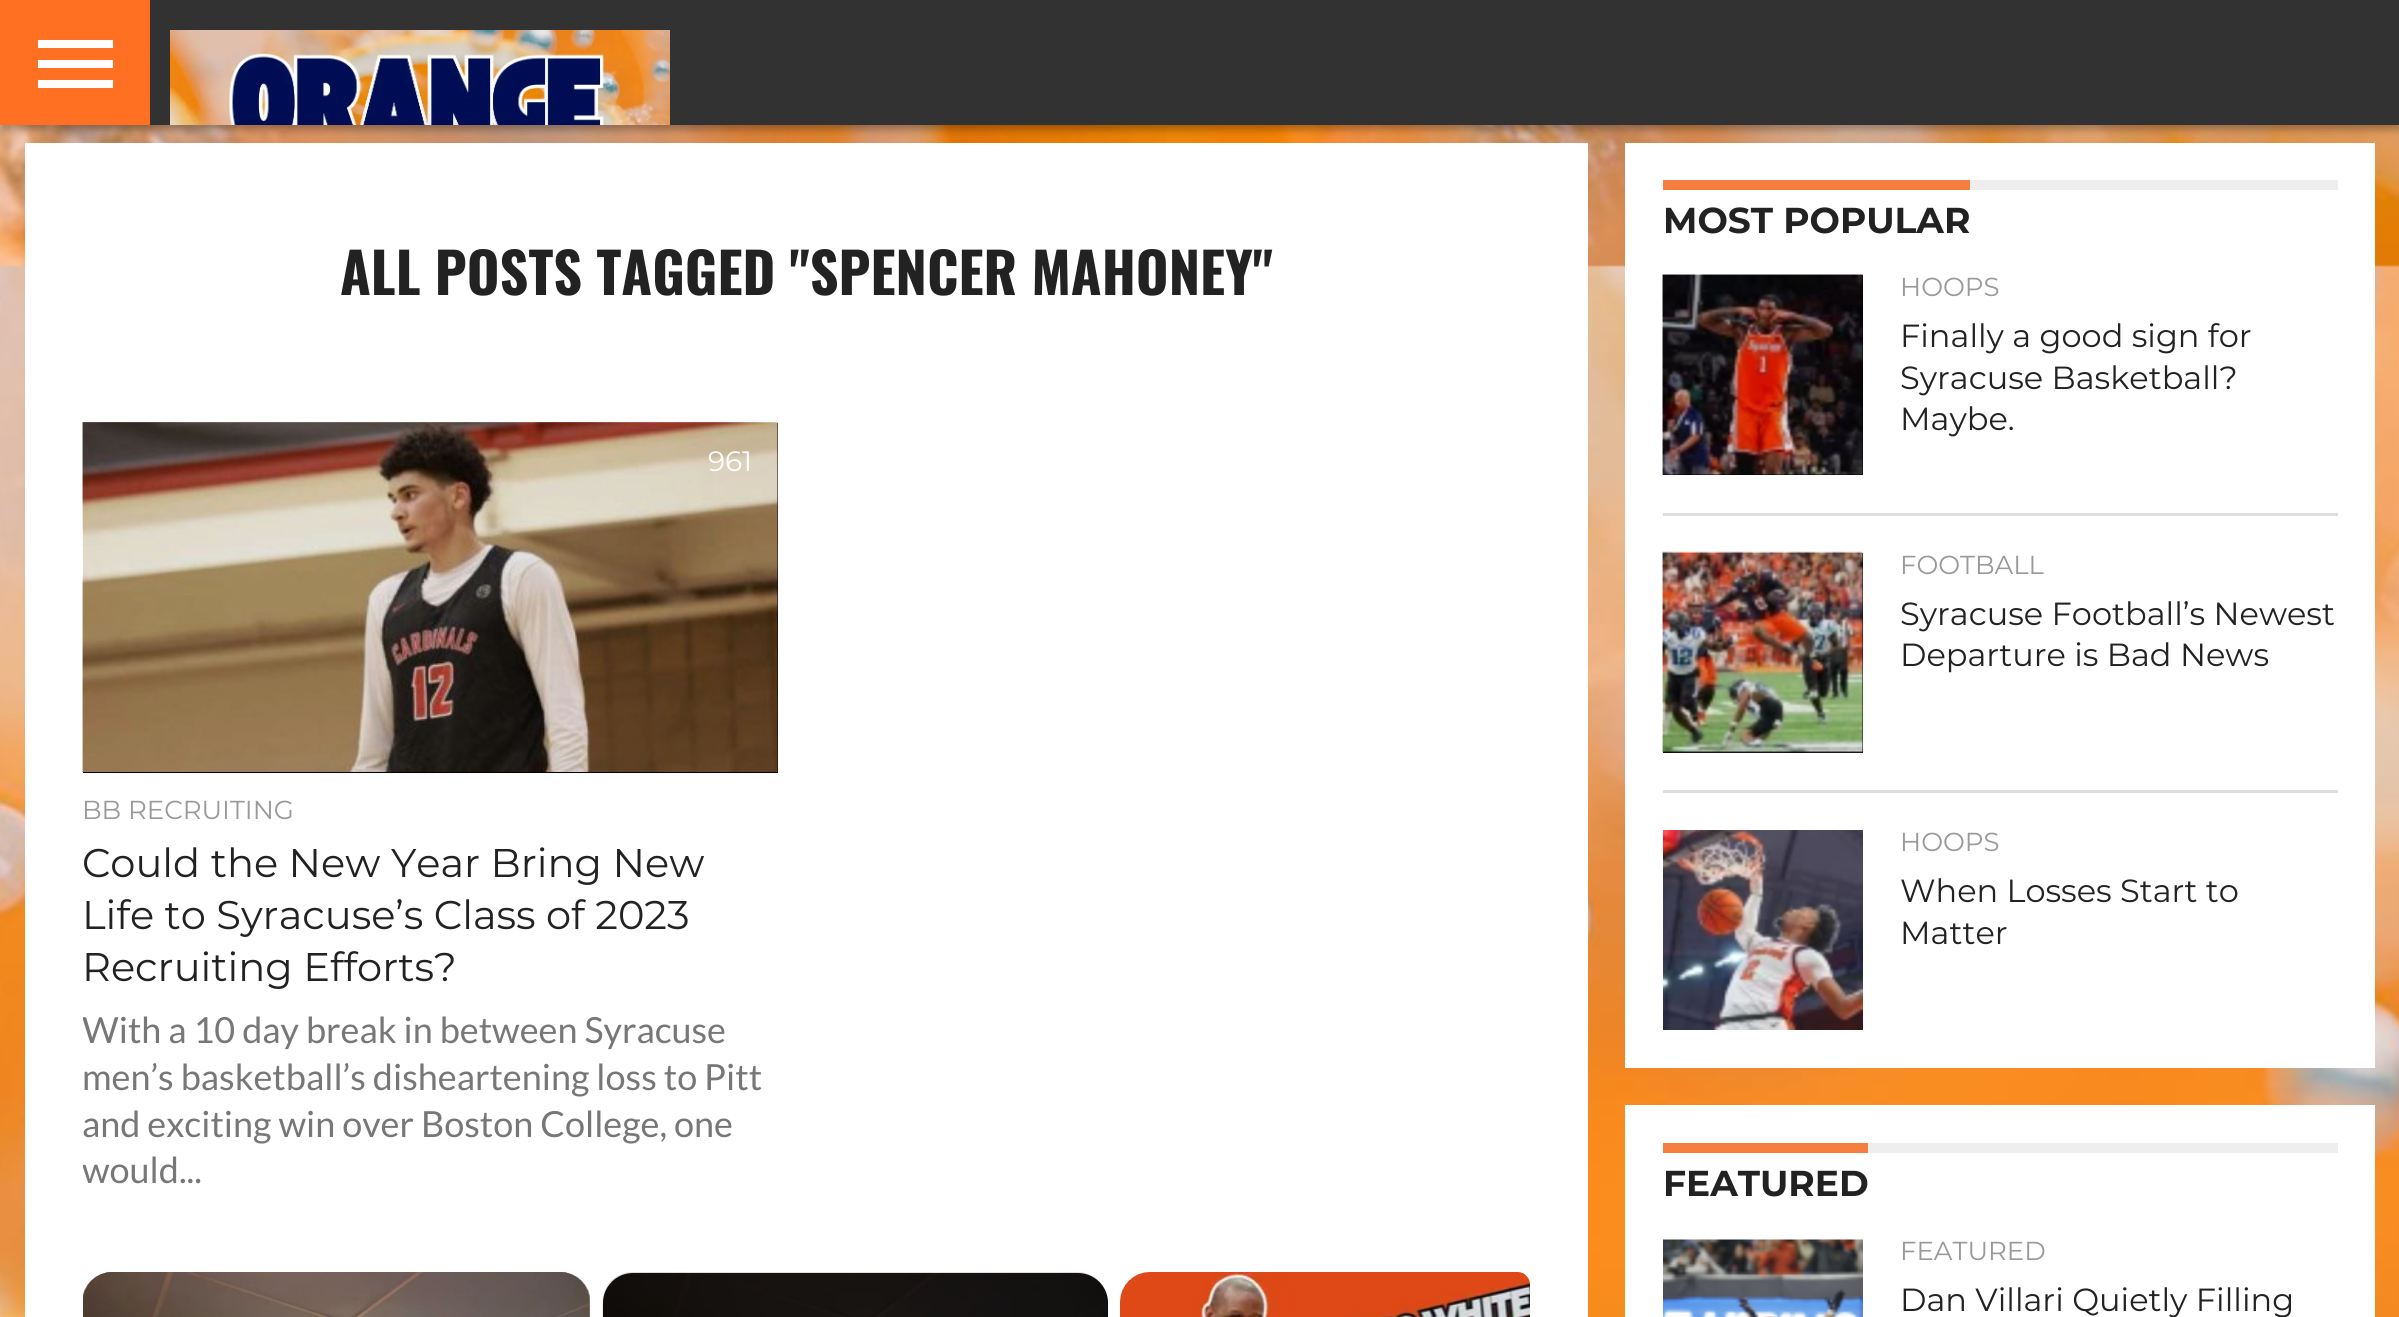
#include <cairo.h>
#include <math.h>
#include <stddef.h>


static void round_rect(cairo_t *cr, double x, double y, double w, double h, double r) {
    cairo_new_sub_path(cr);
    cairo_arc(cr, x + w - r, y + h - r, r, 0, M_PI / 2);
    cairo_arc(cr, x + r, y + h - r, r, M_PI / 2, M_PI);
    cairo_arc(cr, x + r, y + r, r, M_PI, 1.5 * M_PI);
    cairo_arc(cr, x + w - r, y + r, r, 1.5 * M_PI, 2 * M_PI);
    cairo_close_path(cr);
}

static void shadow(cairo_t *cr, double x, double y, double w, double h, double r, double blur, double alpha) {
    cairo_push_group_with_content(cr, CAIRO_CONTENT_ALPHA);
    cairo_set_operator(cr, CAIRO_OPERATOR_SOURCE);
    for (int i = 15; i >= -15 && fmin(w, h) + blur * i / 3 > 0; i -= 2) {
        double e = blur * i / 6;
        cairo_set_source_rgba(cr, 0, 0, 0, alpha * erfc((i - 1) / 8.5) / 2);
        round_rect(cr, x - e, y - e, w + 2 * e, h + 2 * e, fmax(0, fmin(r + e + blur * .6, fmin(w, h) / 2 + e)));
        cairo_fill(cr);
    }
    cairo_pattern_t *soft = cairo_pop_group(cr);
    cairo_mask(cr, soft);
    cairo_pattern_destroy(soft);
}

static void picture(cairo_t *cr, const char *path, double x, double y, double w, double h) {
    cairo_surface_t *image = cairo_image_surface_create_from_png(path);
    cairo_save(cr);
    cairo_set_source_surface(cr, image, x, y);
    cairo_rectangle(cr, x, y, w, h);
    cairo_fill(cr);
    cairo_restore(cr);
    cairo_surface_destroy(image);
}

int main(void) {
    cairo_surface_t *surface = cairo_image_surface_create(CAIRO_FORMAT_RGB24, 2399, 1317);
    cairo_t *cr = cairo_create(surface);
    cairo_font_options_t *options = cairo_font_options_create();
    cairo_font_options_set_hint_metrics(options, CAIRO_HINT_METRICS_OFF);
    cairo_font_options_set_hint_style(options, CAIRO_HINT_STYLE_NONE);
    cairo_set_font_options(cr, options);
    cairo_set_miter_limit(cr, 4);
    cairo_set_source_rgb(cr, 1, 1, 1);
    cairo_paint(cr);
    picture(cr, "img1.png", 0, 125, 2399, 1192);
    cairo_set_source_rgb(cr, 0, 0, 0);
    shadow(cr, 0, 5, 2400, 125, 0, 4, 0.3);
    cairo_set_source_rgb(cr, 0.196, 0.196, 0.2);
    cairo_rectangle(cr, 150, 0, 2249, 125);
    cairo_fill(cr);
    cairo_set_source_rgb(cr, 1, 0.439, 0.137);
    cairo_rectangle(cr, 0, 0, 150, 125);
    cairo_fill(cr);
    cairo_set_source_rgb(cr, 1, 1, 1);
    cairo_rectangle(cr, 38, 40, 75, 8);
    cairo_fill(cr);
    cairo_rectangle(cr, 38, 60, 75, 8);
    cairo_fill(cr);
    cairo_rectangle(cr, 38, 80, 75, 8);
    cairo_fill(cr);
    picture(cr, "img2.png", 170, 30, 500, 95);
    cairo_rectangle(cr, 25, 143, 1563, 1174);
    cairo_fill(cr);
    cairo_select_font_face(cr, "Oswald", CAIRO_FONT_SLANT_NORMAL, CAIRO_FONT_WEIGHT_BOLD);
    cairo_set_font_size(cr, 56);
    cairo_set_source_rgb(cr, 0.133, 0.133, 0.133);
    cairo_move_to(cr, 340, 295);
    cairo_show_text(cr, "ALL POSTS TAGGED \"SPENCER MAHONEY\"");
    cairo_set_source_rgb(cr, 0, 0, 0);
    cairo_rectangle(cr, 83, 423, 695, 350);
    cairo_fill(cr);
    picture(cr, "img3.png", 82, 422, 696, 350);
    cairo_select_font_face(cr, "Montserrat", CAIRO_FONT_SLANT_NORMAL, CAIRO_FONT_WEIGHT_NORMAL);
    cairo_set_font_size(cr, 28);
    cairo_set_source_rgb(cr, 1, 1, 1);
    cairo_move_to(cr, 708, 471);
    cairo_show_text(cr, "961");
    cairo_set_font_size(cr, 26);
    cairo_set_source_rgb(cr, 0.6, 0.6, 0.6);
    cairo_move_to(cr, 82, 819);
    cairo_show_text(cr, "BB RECRUITING");
    cairo_set_font_size(cr, 40);
    cairo_set_source_rgb(cr, 0.133, 0.133, 0.133);
    cairo_move_to(cr, 82, 877);
    cairo_show_text(cr, "Could the New Year Bring New");
    cairo_move_to(cr, 82, 929);
    cairo_show_text(cr, "Life to Syracuse’s Class of 2023");
    cairo_move_to(cr, 82, 981);
    cairo_show_text(cr, "Recruiting Efforts?");
    cairo_save(cr);
    cairo_rectangle(cr, 83, 423, 695, 800);
    cairo_clip(cr);
    cairo_select_font_face(cr, "Lato", CAIRO_FONT_SLANT_NORMAL, CAIRO_FONT_WEIGHT_NORMAL);
    cairo_set_font_size(cr, 36);
    cairo_set_source_rgb(cr, 0.467, 0.467, 0.467);
    cairo_move_to(cr, 82, 1043);
    cairo_show_text(cr, "With a 10 day break in between Syracuse");
    cairo_restore(cr);
    cairo_select_font_face(cr, "Lato", CAIRO_FONT_SLANT_NORMAL, CAIRO_FONT_WEIGHT_NORMAL);
    cairo_set_font_size(cr, 36);
    cairo_set_source_rgb(cr, 0.467, 0.467, 0.467);
    cairo_move_to(cr, 82, 1090);
    cairo_show_text(cr, "men’s basketball’s disheartening loss to Pitt");
    cairo_move_to(cr, 82, 1137);
    cairo_show_text(cr, "and exciting win over Boston College, one");
    cairo_save(cr);
    cairo_rectangle(cr, 83, 423, 695, 800);
    cairo_clip(cr);
    cairo_move_to(cr, 82, 1183);
    cairo_show_text(cr, "would...");
    cairo_restore(cr);
    picture(cr, "img4.png", 83, 1272, 508, 45);
    picture(cr, "img5.png", 83, 1272, 507, 45);
    cairo_set_source_rgb(cr, 0, 0, 0);
    round_rect(cr, 603, 1273, 505, 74, 30);
    cairo_fill(cr);
    picture(cr, "img6.png", 602, 1272, 506, 45);
    picture(cr, "img7.png", 1120, 1272, 410, 45);
    cairo_set_source_rgb(cr, 1, 1, 1);
    cairo_rectangle(cr, 1625, 143, 750, 925);
    cairo_fill(cr);
    cairo_set_source_rgb(cr, 0.933, 0.933, 0.933);
    cairo_rectangle(cr, 1970, 180, 368, 10);
    cairo_fill(cr);
    cairo_set_source_rgb(cr, 0.961, 0.498, 0.247);
    cairo_rectangle(cr, 1663, 180, 307, 10);
    cairo_fill(cr);
    cairo_select_font_face(cr, "Montserrat", CAIRO_FONT_SLANT_NORMAL, CAIRO_FONT_WEIGHT_BOLD);
    cairo_set_source_rgb(cr, 0.133, 0.133, 0.133);
    cairo_move_to(cr, 1663, 233);
    cairo_show_text(cr, "MOST POPULAR");
    cairo_set_source_rgb(cr, 0, 0, 0);
    cairo_rectangle(cr, 1663, 275, 200, 200);
    cairo_fill(cr);
    picture(cr, "img8.png", 1662, 274, 201, 201);
    cairo_select_font_face(cr, "Montserrat", CAIRO_FONT_SLANT_NORMAL, CAIRO_FONT_WEIGHT_NORMAL);
    cairo_set_font_size(cr, 26);
    cairo_set_source_rgb(cr, 0.6, 0.6, 0.6);
    cairo_move_to(cr, 1900, 296);
    cairo_show_text(cr, "HOOPS");
    cairo_set_font_size(cr, 32);
    cairo_set_source_rgb(cr, 0.133, 0.133, 0.133);
    cairo_move_to(cr, 1900, 347);
    cairo_show_text(cr, "Finally a good sign for");
    cairo_move_to(cr, 1900, 389);
    cairo_show_text(cr, "Syracuse Basketball?");
    cairo_move_to(cr, 1900, 430);
    cairo_show_text(cr, "Maybe.");
    cairo_set_source_rgb(cr, 0.867, 0.867, 0.867);
    cairo_rectangle(cr, 1663, 513, 675, 3);
    cairo_fill(cr);
    cairo_set_source_rgb(cr, 0, 0, 0);
    cairo_rectangle(cr, 1663, 553, 200, 200);
    cairo_fill(cr);
    picture(cr, "img9.png", 1662, 551, 201, 202);
    cairo_set_font_size(cr, 26);
    cairo_set_source_rgb(cr, 0.6, 0.6, 0.6);
    cairo_move_to(cr, 1900, 574);
    cairo_show_text(cr, "FOOTBALL");
    cairo_set_font_size(cr, 32);
    cairo_set_source_rgb(cr, 0.133, 0.133, 0.133);
    cairo_move_to(cr, 1900, 625);
    cairo_show_text(cr, "Syracuse Football’s Newest");
    cairo_move_to(cr, 1900, 666);
    cairo_show_text(cr, "Departure is Bad News");
    cairo_set_source_rgb(cr, 0.867, 0.867, 0.867);
    cairo_rectangle(cr, 1663, 790, 675, 3);
    cairo_fill(cr);
    picture(cr, "img10.png", 1663, 830, 200, 200);
    cairo_set_font_size(cr, 26);
    cairo_set_source_rgb(cr, 0.6, 0.6, 0.6);
    cairo_move_to(cr, 1900, 851);
    cairo_show_text(cr, "HOOPS");
    cairo_set_font_size(cr, 32);
    cairo_set_source_rgb(cr, 0.133, 0.133, 0.133);
    cairo_move_to(cr, 1900, 902);
    cairo_show_text(cr, "When Losses Start to");
    cairo_move_to(cr, 1900, 944);
    cairo_show_text(cr, "Matter");
    cairo_set_source_rgb(cr, 1, 1, 1);
    cairo_rectangle(cr, 1625, 1105, 750, 212);
    cairo_fill(cr);
    cairo_set_source_rgb(cr, 0.933, 0.933, 0.933);
    cairo_rectangle(cr, 1868, 1143, 470, 10);
    cairo_fill(cr);
    cairo_set_source_rgb(cr, 0.961, 0.498, 0.247);
    cairo_rectangle(cr, 1663, 1143, 205, 10);
    cairo_fill(cr);
    cairo_select_font_face(cr, "Montserrat", CAIRO_FONT_SLANT_NORMAL, CAIRO_FONT_WEIGHT_BOLD);
    cairo_set_font_size(cr, 36);
    cairo_set_source_rgb(cr, 0.133, 0.133, 0.133);
    cairo_move_to(cr, 1663, 1196);
    cairo_show_text(cr, "FEATURED");
    picture(cr, "img11.png", 1663, 1239, 200, 78);
    cairo_select_font_face(cr, "Montserrat", CAIRO_FONT_SLANT_NORMAL, CAIRO_FONT_WEIGHT_NORMAL);
    cairo_set_font_size(cr, 26);
    cairo_set_source_rgb(cr, 0.6, 0.6, 0.6);
    cairo_move_to(cr, 1900, 1260);
    cairo_show_text(cr, "FEATURED");
    cairo_set_font_size(cr, 32);
    cairo_set_source_rgb(cr, 0.133, 0.133, 0.133);
    cairo_move_to(cr, 1900, 1311);
    cairo_show_text(cr, "Dan Villari Quietly Filling");
    cairo_surface_write_to_png(surface, "page.png");
    cairo_font_options_destroy(options);
    cairo_destroy(cr);
    cairo_surface_destroy(surface);
    return 0;
}
